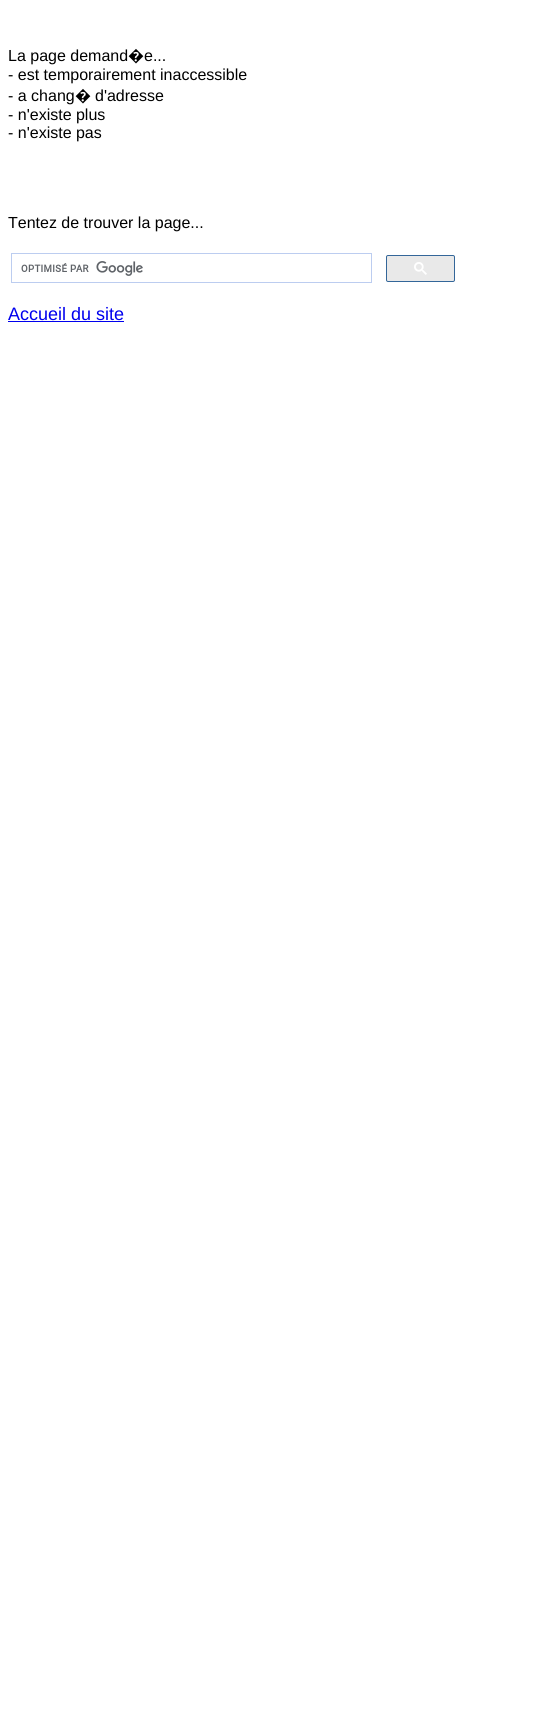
#include <cairo.h>
#include <math.h>
#include <stddef.h>


static void round_rect(cairo_t *cr, double x, double y, double w, double h, double r) {
    cairo_new_sub_path(cr);
    cairo_arc(cr, x + w - r, y + h - r, r, 0, M_PI / 2);
    cairo_arc(cr, x + r, y + h - r, r, M_PI / 2, M_PI);
    cairo_arc(cr, x + r, y + r, r, M_PI, 1.5 * M_PI);
    cairo_arc(cr, x + w - r, y + r, r, 1.5 * M_PI, 2 * M_PI);
    cairo_close_path(cr);
}

static void picture(cairo_t *cr, const char *path, double x, double y, double w, double h) {
    cairo_surface_t *image = cairo_image_surface_create_from_png(path);
    cairo_save(cr);
    cairo_set_source_surface(cr, image, x, y);
    cairo_rectangle(cr, x, y, w, h);
    cairo_fill(cr);
    cairo_restore(cr);
    cairo_surface_destroy(image);
}

int main(void) {
    cairo_surface_t *surface = cairo_image_surface_create(CAIRO_FORMAT_RGB24, 546, 1730);
    cairo_t *cr = cairo_create(surface);
    cairo_font_options_t *options = cairo_font_options_create();
    cairo_font_options_set_hint_metrics(options, CAIRO_HINT_METRICS_OFF);
    cairo_font_options_set_hint_style(options, CAIRO_HINT_STYLE_NONE);
    cairo_set_font_options(cr, options);
    cairo_set_miter_limit(cr, 4);
    cairo_set_source_rgb(cr, 1, 1, 1);
    cairo_paint(cr);
    cairo_select_font_face(cr, "Liberation Sans", CAIRO_FONT_SLANT_NORMAL, CAIRO_FONT_WEIGHT_NORMAL);
    cairo_set_font_size(cr, 16);
    cairo_set_source_rgb(cr, 0, 0, 0);
    cairo_move_to(cr, 8, 61);
    cairo_show_text(cr, "La page demand");
    cairo_select_font_face(cr, "Noto Sans", CAIRO_FONT_SLANT_NORMAL, CAIRO_FONT_WEIGHT_NORMAL);
    cairo_move_to(cr, 128, 61);
    cairo_show_text(cr, "�");
    cairo_select_font_face(cr, "Liberation Sans", CAIRO_FONT_SLANT_NORMAL, CAIRO_FONT_WEIGHT_NORMAL);
    cairo_move_to(cr, 144, 61);
    cairo_show_text(cr, "e...");
    cairo_move_to(cr, 8, 80);
    cairo_show_text(cr, "- est temporairement inaccessible");
    cairo_move_to(cr, 8, 101);
    cairo_show_text(cr, "- a chang");
    cairo_select_font_face(cr, "Noto Sans", CAIRO_FONT_SLANT_NORMAL, CAIRO_FONT_WEIGHT_NORMAL);
    cairo_move_to(cr, 75, 101);
    cairo_show_text(cr, "�");
    cairo_select_font_face(cr, "Liberation Sans", CAIRO_FONT_SLANT_NORMAL, CAIRO_FONT_WEIGHT_NORMAL);
    cairo_move_to(cr, 95, 101);
    cairo_show_text(cr, "d'adresse");
    cairo_move_to(cr, 8, 120);
    cairo_show_text(cr, "- n'existe plus");
    cairo_move_to(cr, 8, 138);
    cairo_show_text(cr, "- n'existe pas");
    cairo_move_to(cr, 8, 228);
    cairo_show_text(cr, "Tentez de trouver la page...");
    cairo_rectangle(cr, 11.5, 253.5, 360, 29);
    cairo_set_source_rgb(cr, 0.737, 0.804, 0.941);
    cairo_set_line_width(cr, 1);
    cairo_stroke(cr);
    picture(cr, "img1.png", 21, 261, 122, 15);
    cairo_set_source_rgb(cr, 0.914, 0.914, 0.914);
    round_rect(cr, 386.5, 255.5, 68, 26, 1.5);
    cairo_fill_preserve(cr);
    cairo_set_source_rgb(cr, 0.2, 0.4, 0.6);
    cairo_stroke(cr);
    picture(cr, "img2.png", 414, 262, 13, 13);
    cairo_set_font_size(cr, 18);
    cairo_set_source_rgb(cr, 0, 0, 0.933);
    cairo_move_to(cr, 8, 320);
    cairo_show_text(cr, "Accueil du site");
    cairo_rectangle(cr, 8, 321, 116, 1);
    cairo_fill(cr);
    cairo_surface_write_to_png(surface, "page.png");
    cairo_font_options_destroy(options);
    cairo_destroy(cr);
    cairo_surface_destroy(surface);
    return 0;
}
